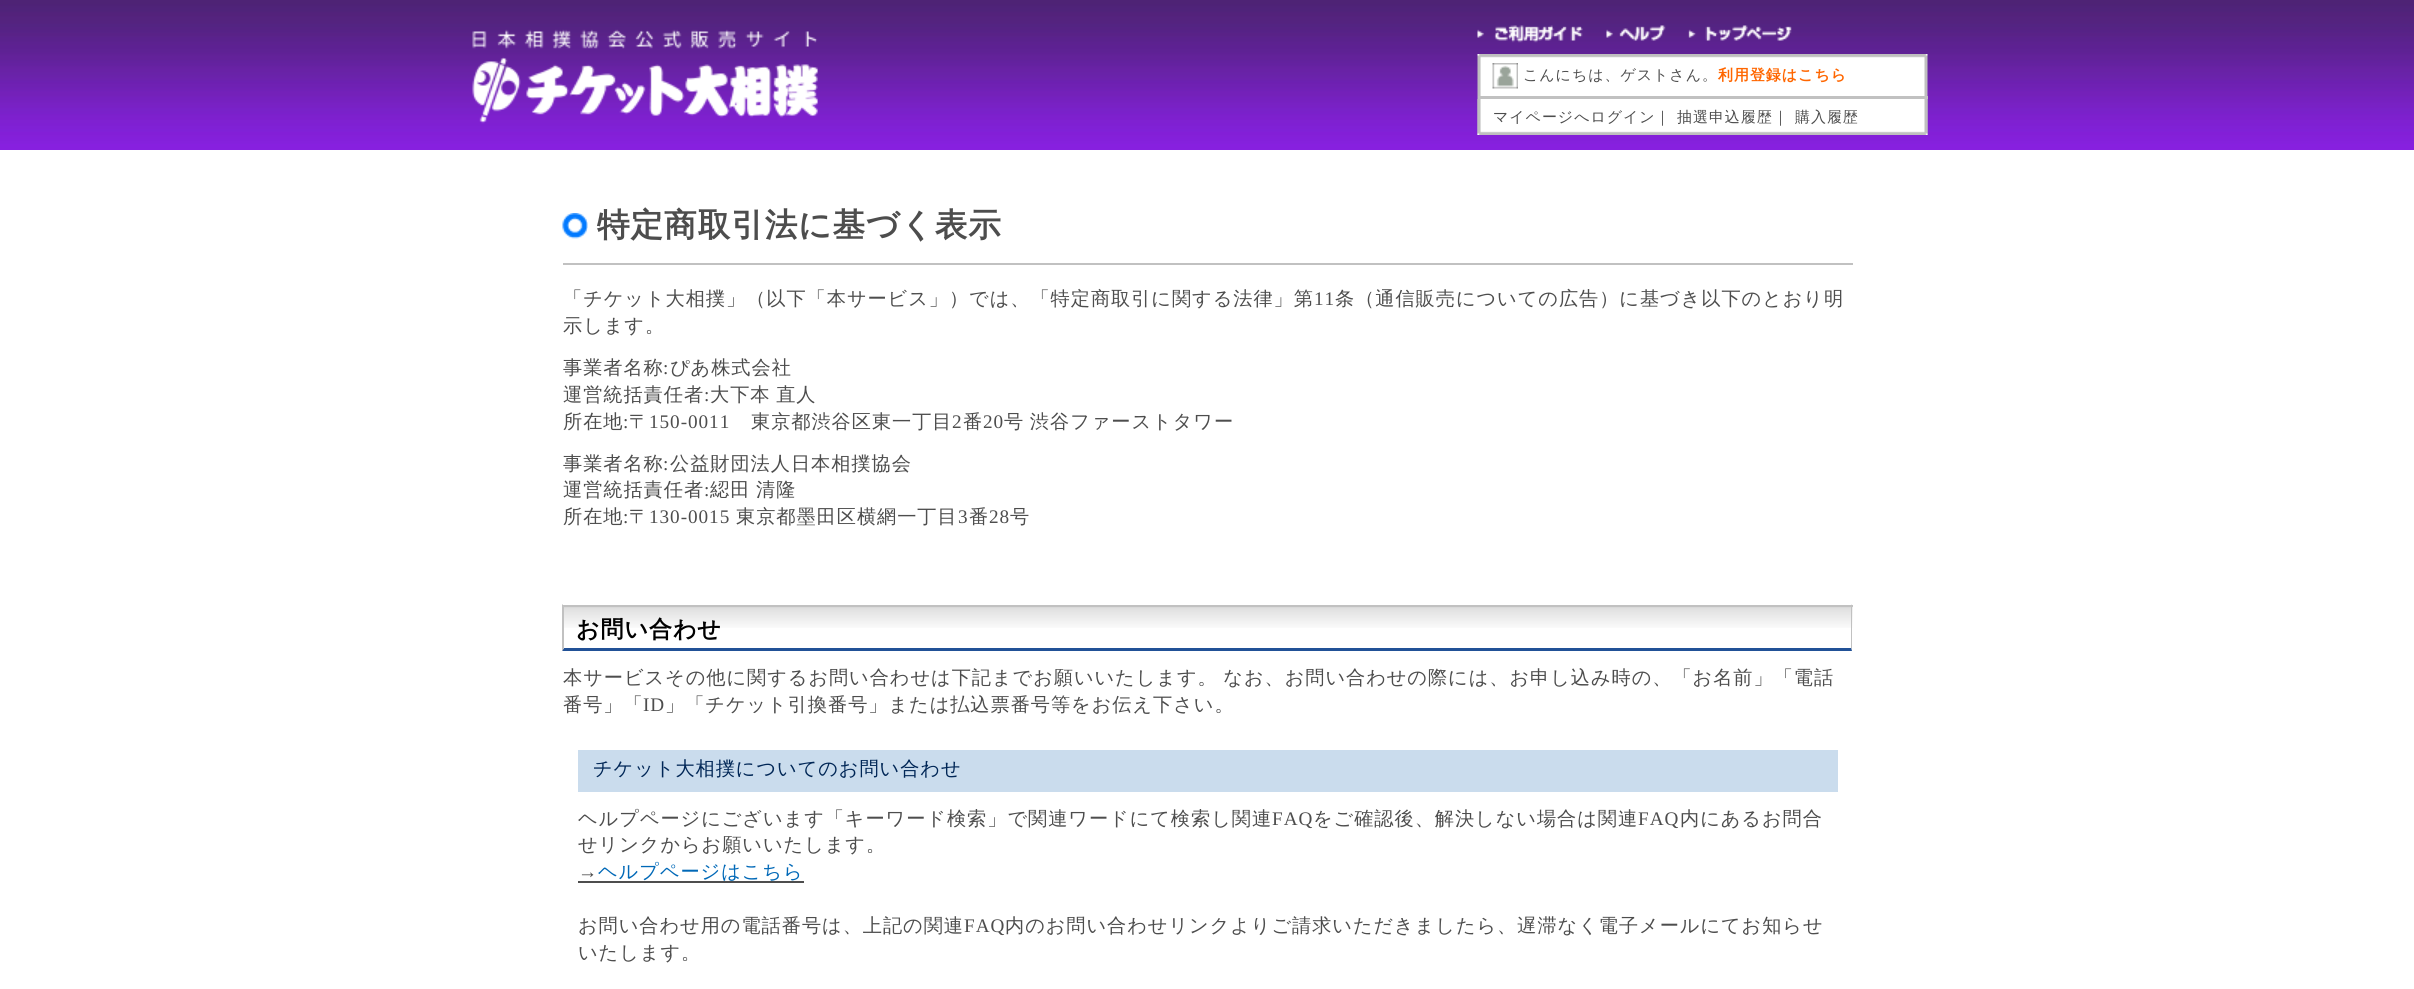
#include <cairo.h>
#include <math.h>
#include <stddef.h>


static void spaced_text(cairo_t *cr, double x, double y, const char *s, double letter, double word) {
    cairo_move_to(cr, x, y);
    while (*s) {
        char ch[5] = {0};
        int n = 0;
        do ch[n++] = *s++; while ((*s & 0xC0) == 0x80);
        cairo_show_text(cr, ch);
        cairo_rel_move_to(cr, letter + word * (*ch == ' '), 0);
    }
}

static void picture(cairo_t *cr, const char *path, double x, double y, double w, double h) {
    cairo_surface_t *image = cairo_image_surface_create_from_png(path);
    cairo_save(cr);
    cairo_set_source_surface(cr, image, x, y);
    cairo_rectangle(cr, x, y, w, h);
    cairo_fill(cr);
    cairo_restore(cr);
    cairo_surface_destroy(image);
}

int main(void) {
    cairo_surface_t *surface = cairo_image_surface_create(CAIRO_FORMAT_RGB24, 2414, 989);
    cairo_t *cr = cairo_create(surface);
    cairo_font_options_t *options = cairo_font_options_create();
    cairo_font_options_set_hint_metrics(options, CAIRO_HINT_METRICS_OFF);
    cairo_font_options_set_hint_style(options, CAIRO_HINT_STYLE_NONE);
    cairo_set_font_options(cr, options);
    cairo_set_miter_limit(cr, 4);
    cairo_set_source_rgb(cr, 1, 1, 1);
    cairo_paint(cr);
    picture(cr, "img1.png", 0, 0, 2414, 150);
    picture(cr, "img2.png", 472, 29, 346, 95);
    picture(cr, "img3.png", 1477, 25, 315, 18);
    picture(cr, "img4.png", 1477, 54, 451, 81);
    cairo_set_source_rgb(cr, 0.757, 0.757, 0.757);
    cairo_rectangle(cr, 1478, 96, 450, 3);
    cairo_fill(cr);
    picture(cr, "img5.png", 1492, 63, 26, 26);
    cairo_select_font_face(cr, "WenQuanYi Zen Hei Medium", CAIRO_FONT_SLANT_NORMAL, CAIRO_FONT_WEIGHT_NORMAL);
    cairo_set_font_size(cr, 15);
    cairo_set_source_rgb(cr, 0.302, 0.302, 0.302);
    spaced_text(cr, 1523, 80, "こんにちは、ゲストさん。", 0.95, 0);
    cairo_select_font_face(cr, "WenQuanYi Zen Hei", CAIRO_FONT_SLANT_NORMAL, CAIRO_FONT_WEIGHT_BOLD);
    cairo_set_source_rgb(cr, 1, 0.4, 0);
    spaced_text(cr, 1718, 80, "利用登録はこちら", 0.95, 0);
    picture(cr, "img6.png", 1477, 99, 451, 36);
    cairo_select_font_face(cr, "WenQuanYi Zen Hei Medium", CAIRO_FONT_SLANT_NORMAL, CAIRO_FONT_WEIGHT_NORMAL);
    cairo_set_source_rgb(cr, 0.302, 0.302, 0.302);
    spaced_text(cr, 1493, 122, "マイページへログイン", 0.95, 0);
    spaced_text(cr, 1655, 122, "｜", 0.95, 0);
    spaced_text(cr, 1677, 122, "抽選申込履歴", 0.95, 0);
    spaced_text(cr, 1773, 122, "｜", 0.95, 0);
    spaced_text(cr, 1795, 122, "購入履歴", 0.95, 0);
    cairo_set_source_rgb(cr, 0.757, 0.757, 0.757);
    cairo_rectangle(cr, 563, 263, 1290, 2);
    cairo_fill(cr);
    picture(cr, "img7.png", 562, 213, 26, 26);
    cairo_select_font_face(cr, "WenQuanYi Zen Hei", CAIRO_FONT_SLANT_NORMAL, CAIRO_FONT_WEIGHT_BOLD);
    cairo_set_font_size(cr, 32.6);
    cairo_set_source_rgb(cr, 0.302, 0.302, 0.302);
    spaced_text(cr, 597, 236, "特定商取引法に基づく表示", 0.95, 0);
    cairo_select_font_face(cr, "WenQuanYi Zen Hei Medium", CAIRO_FONT_SLANT_NORMAL, CAIRO_FONT_WEIGHT_NORMAL);
    cairo_set_font_size(cr, 19.2);
    spaced_text(cr, 563, 305, "「チケット大相撲」（以下「本サービス」）では、「特定商取引に関する法律」第", 0.95, 0);
    cairo_select_font_face(cr, "Liberation Serif", CAIRO_FONT_SLANT_NORMAL, CAIRO_FONT_WEIGHT_NORMAL);
    spaced_text(cr, 1314, 305, "11", 0.95, 0);
    cairo_select_font_face(cr, "WenQuanYi Zen Hei Medium", CAIRO_FONT_SLANT_NORMAL, CAIRO_FONT_WEIGHT_NORMAL);
    spaced_text(cr, 1335, 305, "条（通信販売についての広告）に基づき以下のとおり明", 0.95, 0);
    spaced_text(cr, 563, 332, "示します。", 0.95, 0);
    spaced_text(cr, 563, 374, "事業者名称", 0.95, 0);
    cairo_select_font_face(cr, "Liberation Serif", CAIRO_FONT_SLANT_NORMAL, CAIRO_FONT_WEIGHT_NORMAL);
    spaced_text(cr, 663, 374, ":", 0.95, 0);
    cairo_select_font_face(cr, "WenQuanYi Zen Hei Medium", CAIRO_FONT_SLANT_NORMAL, CAIRO_FONT_WEIGHT_NORMAL);
    spaced_text(cr, 670, 374, "ぴあ株式会社", 0.95, 0);
    spaced_text(cr, 563, 401, "運営統括責任者", 0.95, 0);
    cairo_select_font_face(cr, "Liberation Serif", CAIRO_FONT_SLANT_NORMAL, CAIRO_FONT_WEIGHT_NORMAL);
    spaced_text(cr, 704, 401, ":", 0.95, 0);
    cairo_select_font_face(cr, "WenQuanYi Zen Hei Medium", CAIRO_FONT_SLANT_NORMAL, CAIRO_FONT_WEIGHT_NORMAL);
    spaced_text(cr, 710, 401, "大下本 直人", 0.95, -1);
    spaced_text(cr, 563, 428, "所在地", 0.95, 0);
    cairo_select_font_face(cr, "Liberation Serif", CAIRO_FONT_SLANT_NORMAL, CAIRO_FONT_WEIGHT_NORMAL);
    spaced_text(cr, 623, 428, ":", 0.95, 0);
    cairo_select_font_face(cr, "WenQuanYi Zen Hei Medium", CAIRO_FONT_SLANT_NORMAL, CAIRO_FONT_WEIGHT_NORMAL);
    spaced_text(cr, 629, 428, "〒", 0.95, 0);
    cairo_select_font_face(cr, "Liberation Serif", CAIRO_FONT_SLANT_NORMAL, CAIRO_FONT_WEIGHT_NORMAL);
    spaced_text(cr, 649, 428, "150-0011", 0.95, 0);
    cairo_select_font_face(cr, "WenQuanYi Zen Hei Medium", CAIRO_FONT_SLANT_NORMAL, CAIRO_FONT_WEIGHT_NORMAL);
    spaced_text(cr, 751, 428, "東京都渋谷区東一丁目", 0.95, 0);
    cairo_select_font_face(cr, "Liberation Serif", CAIRO_FONT_SLANT_NORMAL, CAIRO_FONT_WEIGHT_NORMAL);
    spaced_text(cr, 952, 428, "2", 0.95, 0);
    cairo_select_font_face(cr, "WenQuanYi Zen Hei Medium", CAIRO_FONT_SLANT_NORMAL, CAIRO_FONT_WEIGHT_NORMAL);
    spaced_text(cr, 963, 428, "番", 0.95, 0);
    cairo_select_font_face(cr, "Liberation Serif", CAIRO_FONT_SLANT_NORMAL, CAIRO_FONT_WEIGHT_NORMAL);
    spaced_text(cr, 983, 428, "20", 0.95, 0);
    cairo_select_font_face(cr, "WenQuanYi Zen Hei Medium", CAIRO_FONT_SLANT_NORMAL, CAIRO_FONT_WEIGHT_NORMAL);
    spaced_text(cr, 1004, 428, "号 渋谷ファーストタワー", 0.95, -1);
    spaced_text(cr, 563, 470, "事業者名称", 0.95, 0);
    cairo_select_font_face(cr, "Liberation Serif", CAIRO_FONT_SLANT_NORMAL, CAIRO_FONT_WEIGHT_NORMAL);
    spaced_text(cr, 663, 470, ":", 0.95, 0);
    cairo_select_font_face(cr, "WenQuanYi Zen Hei Medium", CAIRO_FONT_SLANT_NORMAL, CAIRO_FONT_WEIGHT_NORMAL);
    spaced_text(cr, 670, 470, "公益財団法人日本相撲協会", 0.95, 0);
    spaced_text(cr, 563, 496, "運営統括責任者", 0.95, 0);
    cairo_select_font_face(cr, "Liberation Serif", CAIRO_FONT_SLANT_NORMAL, CAIRO_FONT_WEIGHT_NORMAL);
    spaced_text(cr, 704, 496, ":", 0.95, 0);
    cairo_select_font_face(cr, "WenQuanYi Zen Hei Medium", CAIRO_FONT_SLANT_NORMAL, CAIRO_FONT_WEIGHT_NORMAL);
    spaced_text(cr, 710, 496, "綛田 清隆", 0.95, -1);
    spaced_text(cr, 563, 523, "所在地", 0.95, 0);
    cairo_select_font_face(cr, "Liberation Serif", CAIRO_FONT_SLANT_NORMAL, CAIRO_FONT_WEIGHT_NORMAL);
    spaced_text(cr, 623, 523, ":", 0.95, 0);
    cairo_select_font_face(cr, "WenQuanYi Zen Hei Medium", CAIRO_FONT_SLANT_NORMAL, CAIRO_FONT_WEIGHT_NORMAL);
    spaced_text(cr, 629, 523, "〒", 0.95, 0);
    cairo_select_font_face(cr, "Liberation Serif", CAIRO_FONT_SLANT_NORMAL, CAIRO_FONT_WEIGHT_NORMAL);
    spaced_text(cr, 649, 523, "130-0015", 0.95, 0);
    cairo_select_font_face(cr, "WenQuanYi Zen Hei Medium", CAIRO_FONT_SLANT_NORMAL, CAIRO_FONT_WEIGHT_NORMAL);
    spaced_text(cr, 736, 523, "東京都墨田区横網一丁目", 0.95, 0);
    cairo_select_font_face(cr, "Liberation Serif", CAIRO_FONT_SLANT_NORMAL, CAIRO_FONT_WEIGHT_NORMAL);
    spaced_text(cr, 958, 523, "3", 0.95, 0);
    cairo_select_font_face(cr, "WenQuanYi Zen Hei Medium", CAIRO_FONT_SLANT_NORMAL, CAIRO_FONT_WEIGHT_NORMAL);
    spaced_text(cr, 969, 523, "番", 0.95, 0);
    cairo_select_font_face(cr, "Liberation Serif", CAIRO_FONT_SLANT_NORMAL, CAIRO_FONT_WEIGHT_NORMAL);
    spaced_text(cr, 989, 523, "28", 0.95, 0);
    cairo_select_font_face(cr, "WenQuanYi Zen Hei Medium", CAIRO_FONT_SLANT_NORMAL, CAIRO_FONT_WEIGHT_NORMAL);
    spaced_text(cr, 1010, 523, "号", 0.95, 0);
    picture(cr, "img8.png", 564, 607, 1289, 21);
    cairo_set_source_rgb(cr, 0.757, 0.757, 0.757);
    cairo_rectangle(cr, 563, 605, 1290, 2);
    cairo_fill(cr);
    cairo_new_path(cr);
    cairo_move_to(cr, 1852, 604);
    cairo_line_to(cr, 1852, 651);
    cairo_line_to(cr, 1851, 648);
    cairo_line_to(cr, 1851, 606);
    cairo_close_path(cr);
    cairo_fill(cr);
    cairo_set_source_rgb(cr, 0.129, 0.318, 0.592);
    cairo_new_path(cr);
    cairo_move_to(cr, 1852, 651);
    cairo_line_to(cr, 562, 651);
    cairo_line_to(cr, 564, 648);
    cairo_line_to(cr, 1851, 648);
    cairo_close_path(cr);
    cairo_fill(cr);
    cairo_set_source_rgb(cr, 0.757, 0.757, 0.757);
    cairo_new_path(cr);
    cairo_move_to(cr, 562, 651);
    cairo_line_to(cr, 562, 604);
    cairo_line_to(cr, 564, 606);
    cairo_line_to(cr, 564, 648);
    cairo_close_path(cr);
    cairo_fill(cr);
    cairo_select_font_face(cr, "WenQuanYi Zen Hei", CAIRO_FONT_SLANT_NORMAL, CAIRO_FONT_WEIGHT_BOLD);
    cairo_set_font_size(cr, 23);
    cairo_set_source_rgb(cr, 0, 0, 0);
    spaced_text(cr, 576, 637, "お問い合わせ", 0.95, 0);
    cairo_select_font_face(cr, "WenQuanYi Zen Hei Medium", CAIRO_FONT_SLANT_NORMAL, CAIRO_FONT_WEIGHT_NORMAL);
    cairo_set_font_size(cr, 19.2);
    cairo_set_source_rgb(cr, 0.302, 0.302, 0.302);
    spaced_text(cr, 563, 684, "本サービスその他に関するお問い合わせは下記までお願いいたします。 なお、お問い合わせの際には、お申し込み時の、「お名前」「電話", 0.95, -1);
    spaced_text(cr, 563, 711, "番号」「", 0.95, 0);
    cairo_select_font_face(cr, "Liberation Serif", CAIRO_FONT_SLANT_NORMAL, CAIRO_FONT_WEIGHT_NORMAL);
    spaced_text(cr, 643, 711, "ID", 0.95, 0);
    cairo_select_font_face(cr, "WenQuanYi Zen Hei Medium", CAIRO_FONT_SLANT_NORMAL, CAIRO_FONT_WEIGHT_NORMAL);
    spaced_text(cr, 665, 711, "」「チケット引換番号」または払込票番号等をお伝え下さい。", 0.95, 0);
    cairo_set_source_rgb(cr, 0.792, 0.863, 0.929);
    cairo_rectangle(cr, 578, 750, 1260, 42);
    cairo_fill(cr);
    cairo_set_source_rgb(cr, 0, 0.149, 0.337);
    spaced_text(cr, 593, 775, "チケット大相撲についてのお問い合わせ", 0.95, 0);
    cairo_set_source_rgb(cr, 0.302, 0.302, 0.302);
    spaced_text(cr, 578, 825, "ヘルプページにございます「キーワード検索」で関連ワードにて検索し関連", 0.95, 0);
    cairo_select_font_face(cr, "Liberation Serif", CAIRO_FONT_SLANT_NORMAL, CAIRO_FONT_WEIGHT_NORMAL);
    spaced_text(cr, 1272, 825, "FAQ", 0.95, 0);
    cairo_select_font_face(cr, "WenQuanYi Zen Hei Medium", CAIRO_FONT_SLANT_NORMAL, CAIRO_FONT_WEIGHT_NORMAL);
    spaced_text(cr, 1313, 825, "をご確認後、解決しない場合は関連", 0.95, 0);
    cairo_select_font_face(cr, "Liberation Serif", CAIRO_FONT_SLANT_NORMAL, CAIRO_FONT_WEIGHT_NORMAL);
    spaced_text(cr, 1638, 825, "FAQ", 0.95, 0);
    cairo_select_font_face(cr, "WenQuanYi Zen Hei Medium", CAIRO_FONT_SLANT_NORMAL, CAIRO_FONT_WEIGHT_NORMAL);
    spaced_text(cr, 1680, 825, "内にあるお問合", 0.95, 0);
    spaced_text(cr, 578, 851, "せリンクからお願いいたします。", 0.95, 0);
    cairo_select_font_face(cr, "Liberation Serif", CAIRO_FONT_SLANT_NORMAL, CAIRO_FONT_WEIGHT_NORMAL);
    spaced_text(cr, 578, 878, "→", 0.95, 0);
    cairo_rectangle(cr, 578, 881, 226, 2);
    cairo_fill(cr);
    cairo_select_font_face(cr, "WenQuanYi Zen Hei Medium", CAIRO_FONT_SLANT_NORMAL, CAIRO_FONT_WEIGHT_NORMAL);
    cairo_set_source_rgb(cr, 0, 0.408, 0.718);
    spaced_text(cr, 598, 878, "ヘルプページはこちら", 0.95, 0);
    cairo_set_source_rgb(cr, 0.302, 0.302, 0.302);
    spaced_text(cr, 578, 932, "お問い合わせ用の電話番号は、上記の関連", 0.95, 0);
    cairo_select_font_face(cr, "Liberation Serif", CAIRO_FONT_SLANT_NORMAL, CAIRO_FONT_WEIGHT_NORMAL);
    spaced_text(cr, 964, 932, "FAQ", 0.95, 0);
    cairo_select_font_face(cr, "WenQuanYi Zen Hei Medium", CAIRO_FONT_SLANT_NORMAL, CAIRO_FONT_WEIGHT_NORMAL);
    spaced_text(cr, 1005, 932, "内のお問い合わせリンクよりご請求いただきましたら、遅滞なく電子メールにてお知らせ", 0.95, 0);
    spaced_text(cr, 578, 959, "いたします。", 0.95, 0);
    cairo_surface_write_to_png(surface, "page.png");
    cairo_font_options_destroy(options);
    cairo_destroy(cr);
    cairo_surface_destroy(surface);
    return 0;
}
